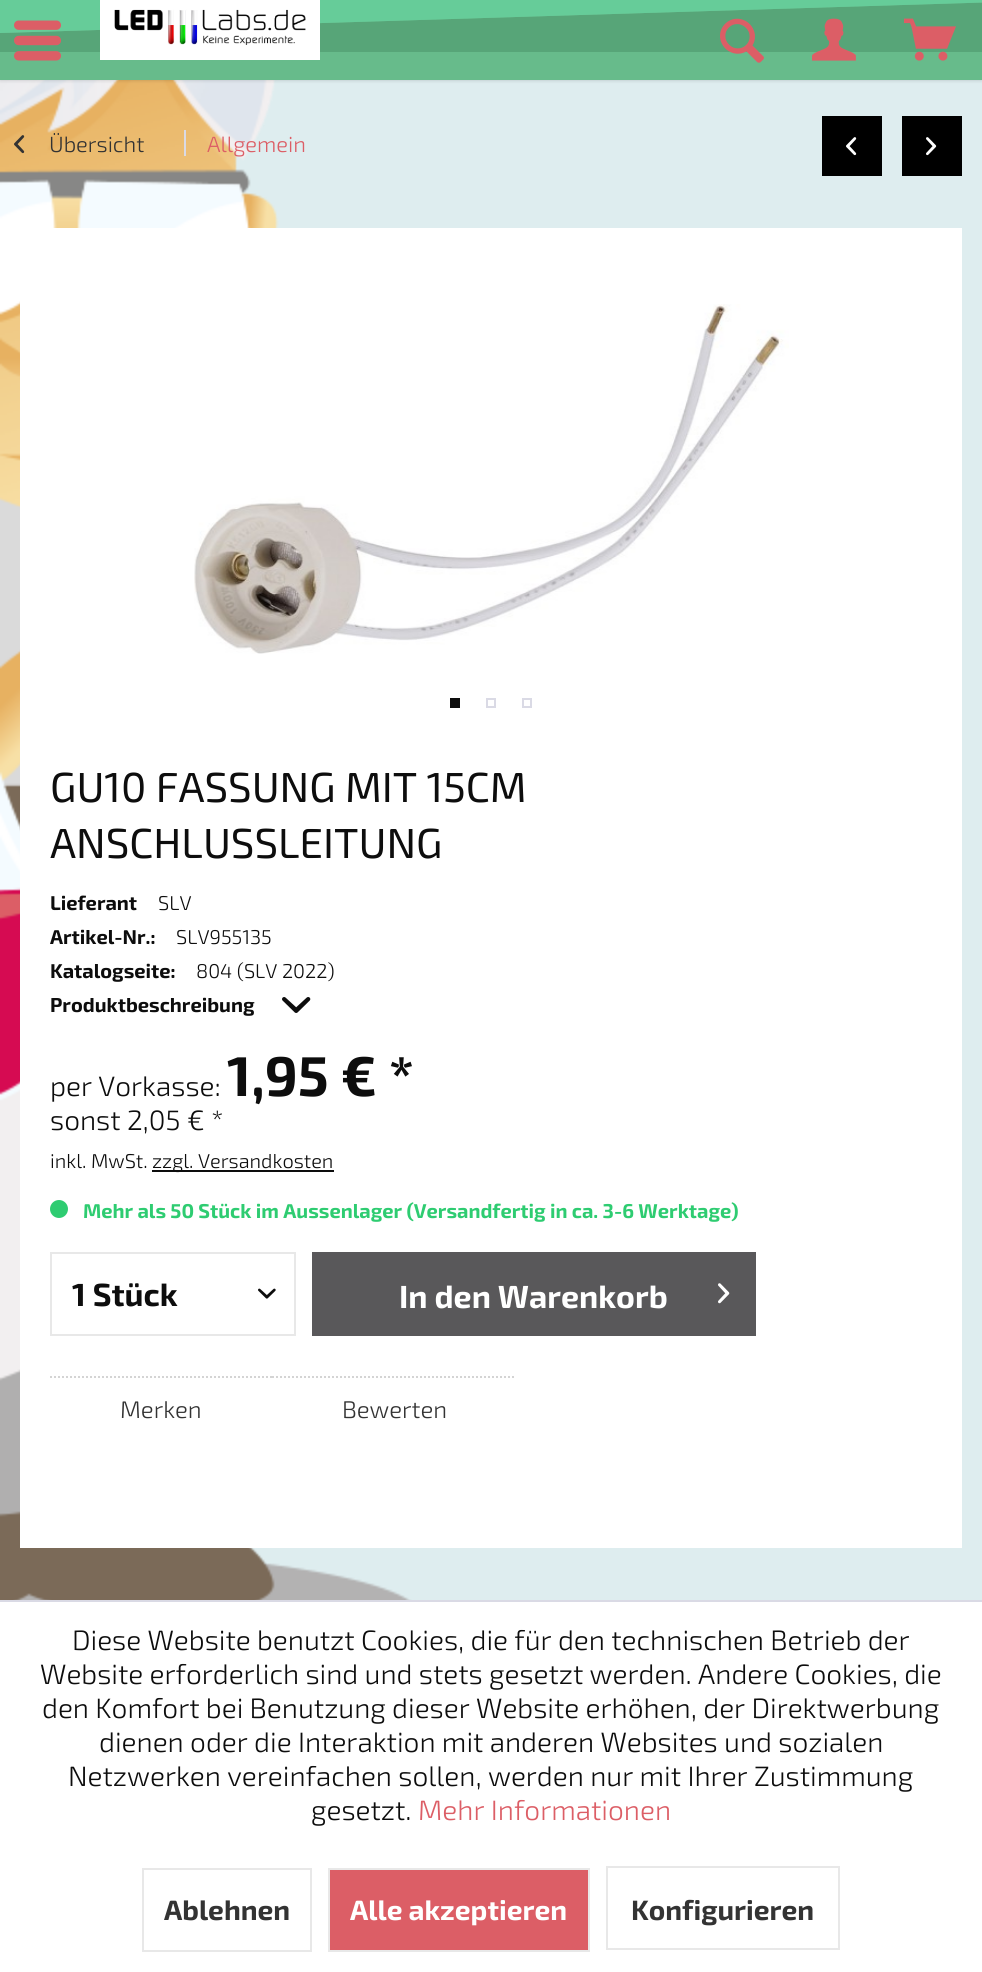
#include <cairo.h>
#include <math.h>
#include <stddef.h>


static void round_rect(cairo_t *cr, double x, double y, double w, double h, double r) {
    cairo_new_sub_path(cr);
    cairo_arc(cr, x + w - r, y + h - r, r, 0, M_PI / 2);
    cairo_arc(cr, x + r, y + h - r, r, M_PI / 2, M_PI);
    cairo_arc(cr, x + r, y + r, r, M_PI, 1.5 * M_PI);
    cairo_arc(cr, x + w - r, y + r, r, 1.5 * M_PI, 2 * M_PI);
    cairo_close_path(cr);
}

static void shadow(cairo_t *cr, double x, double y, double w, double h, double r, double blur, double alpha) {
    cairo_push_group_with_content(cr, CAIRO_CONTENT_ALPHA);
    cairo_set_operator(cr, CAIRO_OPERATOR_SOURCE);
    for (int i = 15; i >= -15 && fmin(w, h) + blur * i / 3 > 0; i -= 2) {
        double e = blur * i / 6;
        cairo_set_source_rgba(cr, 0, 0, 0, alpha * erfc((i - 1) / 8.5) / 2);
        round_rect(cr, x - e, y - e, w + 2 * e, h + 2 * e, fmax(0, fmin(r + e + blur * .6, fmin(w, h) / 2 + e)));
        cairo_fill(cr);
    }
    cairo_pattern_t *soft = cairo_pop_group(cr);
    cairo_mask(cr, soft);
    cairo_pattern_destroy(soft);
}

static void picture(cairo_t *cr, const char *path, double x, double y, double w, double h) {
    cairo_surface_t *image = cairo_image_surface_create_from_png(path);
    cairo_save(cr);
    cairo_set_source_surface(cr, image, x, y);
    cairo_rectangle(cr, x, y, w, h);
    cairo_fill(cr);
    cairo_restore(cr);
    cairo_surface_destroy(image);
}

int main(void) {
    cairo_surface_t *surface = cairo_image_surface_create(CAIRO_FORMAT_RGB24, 982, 1972);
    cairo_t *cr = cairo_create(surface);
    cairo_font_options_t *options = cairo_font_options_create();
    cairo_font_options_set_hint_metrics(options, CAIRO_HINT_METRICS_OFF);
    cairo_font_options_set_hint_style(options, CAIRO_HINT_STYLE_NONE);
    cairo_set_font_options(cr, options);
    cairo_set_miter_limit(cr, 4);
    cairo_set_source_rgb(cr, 0.871, 0.929, 0.937);
    cairo_paint(cr);
    picture(cr, "img1.png", 0, 80, 412, 1520);
    cairo_set_source_rgb(cr, 0, 0, 0);
    shadow(cr, 0, 0, 982, 80, 0, 2, 0.2);
    cairo_set_source_rgb(cr, 0.404, 0.733, 0.545);
    cairo_rectangle(cr, 0, 2, 982, 78);
    cairo_fill(cr);
    cairo_set_source_rgb(cr, 0.341, 0.647, 0.471);
    cairo_new_path(cr);
    cairo_move_to(cr, 0, 52);
    cairo_line_to(cr, 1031, 52);
    cairo_line_to(cr, 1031, 1);
    cairo_line_to(cr, 0, 33);
    cairo_close_path(cr);
    cairo_fill(cr);
    cairo_set_source_rgb(cr, 0.4, 0.8, 0.6);
    cairo_new_path(cr);
    cairo_move_to(cr, 0, 33);
    cairo_line_to(cr, 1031, 1);
    cairo_line_to(cr, 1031, 0);
    cairo_line_to(cr, 0, 0);
    cairo_close_path(cr);
    cairo_fill(cr);
    cairo_set_source_rgb(cr, 1, 1, 1);
    cairo_rectangle(cr, 100, 0, 220, 60);
    cairo_fill(cr);
    picture(cr, "img2.png", 114, 9, 192, 36);
    picture(cr, "img3.png", 14, 20, 47, 41);
    picture(cr, "img4.png", 720, 18, 44, 45);
    picture(cr, "img5.png", 812, 18, 44, 43);
    picture(cr, "img6.png", 904, 18, 52, 43);
    picture(cr, "img7.png", 14, 135, 11, 19);
    cairo_select_font_face(cr, "Exo 2 Light", CAIRO_FONT_SLANT_NORMAL, CAIRO_FONT_WEIGHT_NORMAL);
    cairo_set_font_size(cr, 22);
    cairo_set_source_rgb(cr, 0.2, 0.2, 0.2);
    cairo_move_to(cr, 49, 152);
    cairo_show_text(cr, "Übersicht");
    cairo_set_source_rgb(cr, 0.855, 0.855, 0.898);
    cairo_rectangle(cr, 184, 130, 2, 26);
    cairo_fill(cr);
    cairo_set_source_rgb(cr, 0.863, 0.369, 0.4);
    cairo_move_to(cr, 207, 152);
    cairo_show_text(cr, "Allgemein");
    cairo_set_source_rgb(cr, 0, 0, 0);
    cairo_rectangle(cr, 822, 116, 60, 60);
    cairo_fill(cr);
    picture(cr, "img8.png", 846, 137, 11, 19);
    cairo_rectangle(cr, 902, 116, 60, 60);
    cairo_fill(cr);
    picture(cr, "img9.png", 926, 137, 11, 19);
    cairo_set_source_rgb(cr, 1, 1, 1);
    cairo_rectangle(cr, 20, 228, 942, 1320);
    cairo_fill(cr);
    picture(cr, "img10.png", 194, 304, 595, 350);
    cairo_set_source_rgb(cr, 0.051, 0.051, 0.051);
    cairo_rectangle(cr, 450, 698, 10, 10);
    cairo_fill(cr);
    cairo_rectangle(cr, 487, 699, 8, 8);
    cairo_set_source_rgb(cr, 0.855, 0.855, 0.898);
    cairo_stroke(cr);
    cairo_rectangle(cr, 523, 699, 8, 8);
    cairo_stroke(cr);
    cairo_select_font_face(cr, "Exo 2", CAIRO_FONT_SLANT_NORMAL, CAIRO_FONT_WEIGHT_NORMAL);
    cairo_set_font_size(cr, 42);
    cairo_set_source_rgb(cr, 0.051, 0.051, 0.051);
    cairo_move_to(cr, 50, 802);
    cairo_show_text(cr, "GU10 FASSUNG MIT 15CM");
    cairo_move_to(cr, 50, 858);
    cairo_show_text(cr, "ANSCHLUSSLEITUNG");
    cairo_select_font_face(cr, "Exo 2", CAIRO_FONT_SLANT_NORMAL, CAIRO_FONT_WEIGHT_BOLD);
    cairo_set_font_size(cr, 20);
    cairo_move_to(cr, 50, 910);
    cairo_show_text(cr, "Lieferant");
    cairo_select_font_face(cr, "Exo 2 Light", CAIRO_FONT_SLANT_NORMAL, CAIRO_FONT_WEIGHT_NORMAL);
    cairo_move_to(cr, 158, 910);
    cairo_show_text(cr, "SLV");
    cairo_select_font_face(cr, "Exo 2", CAIRO_FONT_SLANT_NORMAL, CAIRO_FONT_WEIGHT_BOLD);
    cairo_move_to(cr, 50, 944);
    cairo_show_text(cr, "Artikel-Nr.:");
    cairo_select_font_face(cr, "Exo 2 Light", CAIRO_FONT_SLANT_NORMAL, CAIRO_FONT_WEIGHT_NORMAL);
    cairo_move_to(cr, 176, 944);
    cairo_show_text(cr, "SLV955135");
    cairo_select_font_face(cr, "Exo 2", CAIRO_FONT_SLANT_NORMAL, CAIRO_FONT_WEIGHT_BOLD);
    cairo_move_to(cr, 50, 978);
    cairo_show_text(cr, "Katalogseite:");
    cairo_select_font_face(cr, "Exo 2 Light", CAIRO_FONT_SLANT_NORMAL, CAIRO_FONT_WEIGHT_NORMAL);
    cairo_move_to(cr, 196, 978);
    cairo_show_text(cr, "804 (SLV 2022)");
    cairo_select_font_face(cr, "Exo 2", CAIRO_FONT_SLANT_NORMAL, CAIRO_FONT_WEIGHT_BOLD);
    cairo_move_to(cr, 50, 1012);
    cairo_show_text(cr, "Produktbeschreibung");
    picture(cr, "img11.png", 282, 997, 29, 16);
    cairo_select_font_face(cr, "Exo 2 Light", CAIRO_FONT_SLANT_NORMAL, CAIRO_FONT_WEIGHT_NORMAL);
    cairo_set_font_size(cr, 28);
    cairo_move_to(cr, 50, 1096);
    cairo_show_text(cr, "per Vorkasse:");
    cairo_select_font_face(cr, "Exo 2", CAIRO_FONT_SLANT_NORMAL, CAIRO_FONT_WEIGHT_BOLD);
    cairo_set_font_size(cr, 56);
    cairo_move_to(cr, 227, 1096);
    cairo_show_text(cr, "1,95 € *");
    cairo_select_font_face(cr, "Exo 2 Light", CAIRO_FONT_SLANT_NORMAL, CAIRO_FONT_WEIGHT_NORMAL);
    cairo_set_font_size(cr, 28);
    cairo_move_to(cr, 50, 1130);
    cairo_show_text(cr, "sonst 2,05 € *");
    cairo_set_font_size(cr, 20);
    cairo_move_to(cr, 50, 1168);
    cairo_show_text(cr, "inkl. MwSt.");
    cairo_rectangle(cr, 152, 1170, 182, 2);
    cairo_fill(cr);
    cairo_move_to(cr, 152, 1168);
    cairo_show_text(cr, "zzgl. Versandkosten");
    cairo_set_source_rgb(cr, 0.18, 0.8, 0.443);
    cairo_new_path(cr);
    cairo_arc(cr, 59, 1209, 9, 0, 2 * M_PI);
    cairo_fill(cr);
    cairo_select_font_face(cr, "Exo 2", CAIRO_FONT_SLANT_NORMAL, CAIRO_FONT_WEIGHT_BOLD);
    cairo_move_to(cr, 83, 1218);
    cairo_show_text(cr, "Mehr als 50 Stück im Aussenlager (Versandfertig in ca. 3-6 Werktage)");
    cairo_rectangle(cr, 51, 1253, 244, 82);
    cairo_set_source_rgb(cr, 0.91, 0.91, 0.91);
    cairo_stroke(cr);
    cairo_set_font_size(cr, 32);
    cairo_set_source_rgb(cr, 0.051, 0.051, 0.051);
    cairo_move_to(cr, 72, 1306);
    cairo_show_text(cr, "1 Stück");
    picture(cr, "img12.png", 258, 1288, 18, 11);
    cairo_set_source_rgb(cr, 0.349, 0.345, 0.353);
    cairo_rectangle(cr, 312, 1252, 444, 84);
    cairo_fill(cr);
    cairo_set_source_rgb(cr, 1, 1, 1);
    cairo_move_to(cr, 399, 1308);
    cairo_show_text(cr, "In den Warenkorb");
    picture(cr, "img13.png", 718, 1283, 12, 21);
    cairo_new_path(cr);
    cairo_move_to(cr, 50, 1377);
    cairo_line_to(cr, 272, 1377);
    cairo_set_source_rgb(cr, 0.831, 0.831, 0.831);
    cairo_set_dash(cr, (double[]){2, 2}, 2, 0);
    cairo_stroke(cr);
    cairo_select_font_face(cr, "Exo 2 Light", CAIRO_FONT_SLANT_NORMAL, CAIRO_FONT_WEIGHT_NORMAL);
    cairo_set_font_size(cr, 24);
    cairo_set_source_rgb(cr, 0.2, 0.2, 0.2);
    cairo_move_to(cr, 120, 1418);
    cairo_show_text(cr, "Merken");
    cairo_new_path(cr);
    cairo_move_to(cr, 272, 1377);
    cairo_line_to(cr, 516, 1377);
    cairo_set_source_rgb(cr, 0.831, 0.831, 0.831);
    cairo_stroke(cr);
    cairo_set_source_rgb(cr, 0.2, 0.2, 0.2);
    cairo_move_to(cr, 342, 1418);
    cairo_show_text(cr, "Bewerten");
    cairo_set_source_rgb(cr, 1, 1, 1);
    cairo_rectangle(cr, 0, 1602, 982, 370);
    cairo_fill(cr);
    cairo_set_source_rgb(cr, 0.855, 0.855, 0.898);
    cairo_rectangle(cr, 0, 1600, 982, 2);
    cairo_fill(cr);
    cairo_set_font_size(cr, 28);
    cairo_set_source_rgb(cr, 0.051, 0.051, 0.051);
    cairo_move_to(cr, 72, 1650);
    cairo_show_text(cr, "Diese Website benutzt Cookies, die für den technischen Betrieb der");
    cairo_move_to(cr, 40, 1684);
    cairo_show_text(cr, "Website erforderlich sind und stets gesetzt werden. Andere Cookies, die");
    cairo_move_to(cr, 42, 1718);
    cairo_show_text(cr, "den Komfort bei Benutzung dieser Website erhöhen, der Direktwerbung");
    cairo_move_to(cr, 99, 1752);
    cairo_show_text(cr, "dienen oder die Interaktion mit anderen Websites und sozialen");
    cairo_move_to(cr, 68, 1786);
    cairo_show_text(cr, "Netzwerken vereinfachen sollen, werden nur mit Ihrer Zustimmung");
    cairo_move_to(cr, 311, 1820);
    cairo_show_text(cr, "gesetzt.");
    cairo_set_source_rgb(cr, 0.863, 0.369, 0.4);
    cairo_move_to(cr, 418, 1820);
    cairo_show_text(cr, "Mehr Informationen");
    cairo_rectangle(cr, 143, 1869, 168, 82);
    cairo_set_source_rgb(cr, 0.91, 0.91, 0.91);
    cairo_set_dash(cr, NULL, 0, 0);
    cairo_stroke(cr);
    cairo_select_font_face(cr, "Exo 2", CAIRO_FONT_SLANT_NORMAL, CAIRO_FONT_WEIGHT_BOLD);
    cairo_set_source_rgb(cr, 0.2, 0.2, 0.2);
    cairo_move_to(cr, 164, 1920);
    cairo_show_text(cr, "Ablehnen");
    cairo_set_source_rgb(cr, 0.863, 0.369, 0.4);
    cairo_rectangle(cr, 329, 1869, 260, 82);
    cairo_fill_preserve(cr);
    cairo_set_source_rgb(cr, 0.91, 0.91, 0.91);
    cairo_stroke(cr);
    cairo_set_source_rgb(cr, 1, 1, 1);
    cairo_move_to(cr, 350, 1920);
    cairo_show_text(cr, "Alle akzeptieren");
    cairo_rectangle(cr, 607, 1867, 232, 82);
    cairo_set_source_rgb(cr, 0.91, 0.91, 0.91);
    cairo_stroke(cr);
    cairo_set_source_rgb(cr, 0.2, 0.2, 0.2);
    cairo_move_to(cr, 631, 1920);
    cairo_show_text(cr, "Konfigurieren");
    cairo_surface_write_to_png(surface, "page.png");
    cairo_font_options_destroy(options);
    cairo_destroy(cr);
    cairo_surface_destroy(surface);
    return 0;
}
